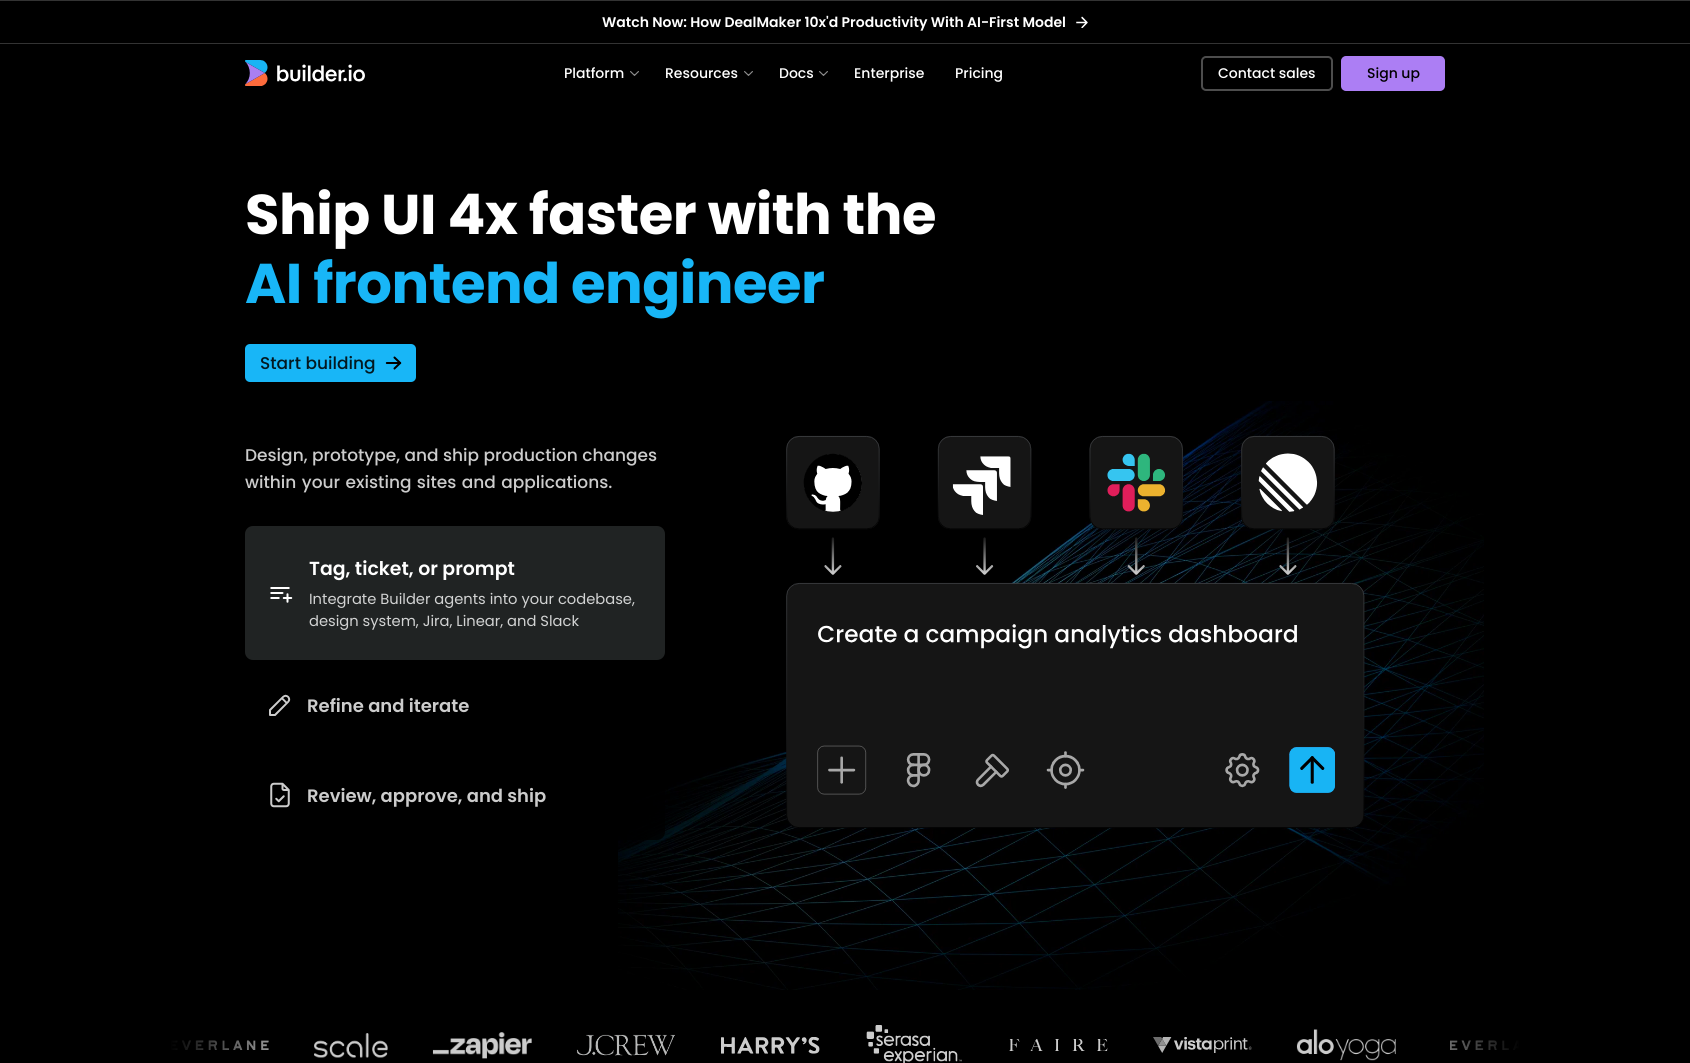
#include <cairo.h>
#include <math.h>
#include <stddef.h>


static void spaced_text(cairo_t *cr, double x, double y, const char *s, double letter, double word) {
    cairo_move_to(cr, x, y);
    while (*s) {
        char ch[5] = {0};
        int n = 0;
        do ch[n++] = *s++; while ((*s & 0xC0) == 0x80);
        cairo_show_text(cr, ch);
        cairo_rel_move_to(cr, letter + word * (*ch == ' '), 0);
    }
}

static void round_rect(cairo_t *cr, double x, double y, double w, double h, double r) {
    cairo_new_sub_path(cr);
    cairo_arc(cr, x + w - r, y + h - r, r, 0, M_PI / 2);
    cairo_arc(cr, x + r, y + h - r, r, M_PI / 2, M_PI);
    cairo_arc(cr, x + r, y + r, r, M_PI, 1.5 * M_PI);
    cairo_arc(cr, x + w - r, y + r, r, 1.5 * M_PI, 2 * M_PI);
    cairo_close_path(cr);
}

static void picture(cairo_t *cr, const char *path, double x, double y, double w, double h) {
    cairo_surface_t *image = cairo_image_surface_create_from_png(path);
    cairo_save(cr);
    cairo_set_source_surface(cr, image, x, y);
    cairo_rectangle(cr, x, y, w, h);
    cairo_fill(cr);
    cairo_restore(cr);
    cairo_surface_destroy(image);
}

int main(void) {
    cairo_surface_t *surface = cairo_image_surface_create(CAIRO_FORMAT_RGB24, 1690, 1063);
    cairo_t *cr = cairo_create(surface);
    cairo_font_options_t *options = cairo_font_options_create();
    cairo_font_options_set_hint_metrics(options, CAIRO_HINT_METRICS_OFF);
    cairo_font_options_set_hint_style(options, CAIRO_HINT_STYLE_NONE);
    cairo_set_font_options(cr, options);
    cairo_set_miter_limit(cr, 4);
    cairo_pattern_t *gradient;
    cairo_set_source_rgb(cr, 0, 0, 0);
    cairo_paint(cr);
    cairo_set_source_rgb(cr, 0.2, 0.2, 0.2);
    cairo_rectangle(cr, 0, 0, 1690, 1);
    cairo_fill(cr);
    cairo_rectangle(cr, 0, 43, 1690, 1);
    cairo_fill(cr);
    cairo_select_font_face(cr, "Poppins SemiBold", CAIRO_FONT_SLANT_NORMAL, CAIRO_FONT_WEIGHT_NORMAL);
    cairo_set_font_size(cr, 14);
    cairo_set_source_rgb(cr, 1, 1, 1);
    cairo_move_to(cr, 602, 27);
    cairo_show_text(cr, "Watch Now: How DealMaker 10x'd Productivity With AI-First Model");
    picture(cr, "img1.png", 1076, 16, 12, 12);
    picture(cr, "img2.png", 245, 60, 120, 26);
    cairo_select_font_face(cr, "Poppins Medium", CAIRO_FONT_SLANT_NORMAL, CAIRO_FONT_WEIGHT_NORMAL);
    cairo_move_to(cr, 564, 78);
    cairo_show_text(cr, "Platform");
    picture(cr, "img3.png", 630, 71, 9, 5);
    cairo_move_to(cr, 665, 78);
    cairo_show_text(cr, "Resources");
    picture(cr, "img3.png", 744, 71, 9, 5);
    cairo_move_to(cr, 779, 78);
    cairo_show_text(cr, "Docs");
    picture(cr, "img3.png", 819, 71, 9, 5);
    cairo_move_to(cr, 854, 78);
    cairo_show_text(cr, "Enterprise");
    cairo_move_to(cr, 955, 78);
    cairo_show_text(cr, "Pricing");
    round_rect(cr, 1202, 57, 130, 33, 4);
    cairo_set_source_rgb(cr, 0.302, 0.302, 0.302);
    cairo_stroke(cr);
    cairo_set_source_rgb(cr, 1, 1, 1);
    cairo_move_to(cr, 1218, 78);
    cairo_show_text(cr, "Contact sales");
    cairo_set_source_rgb(cr, 0.675, 0.494, 0.957);
    round_rect(cr, 1342, 57, 102, 33, 4);
    cairo_fill_preserve(cr);
    cairo_stroke(cr);
    cairo_set_source_rgb(cr, 0, 0, 0);
    cairo_move_to(cr, 1367, 78);
    cairo_show_text(cr, "Sign up");
    cairo_select_font_face(cr, "Poppins", CAIRO_FONT_SLANT_NORMAL, CAIRO_FONT_WEIGHT_BOLD);
    cairo_set_font_size(cr, 56);
    cairo_set_source_rgb(cr, 1, 1, 1);
    spaced_text(cr, 245, 234, "Ship UI 4x faster with the", -0.5, 0);
    cairo_set_source_rgb(cr, 0.094, 0.714, 0.965);
    spaced_text(cr, 245, 303, "AI frontend engineer", -0.5, 0);
    round_rect(cr, 245, 344, 171, 38, 5);
    cairo_fill(cr);
    cairo_select_font_face(cr, "Poppins Medium", CAIRO_FONT_SLANT_NORMAL, CAIRO_FONT_WEIGHT_NORMAL);
    cairo_set_font_size(cr, 17);
    cairo_set_source_rgb(cr, 0.012, 0.094, 0.125);
    cairo_move_to(cr, 260, 369);
    cairo_show_text(cr, "Start building");
    picture(cr, "img4.png", 385, 356, 17, 14);
    picture(cr, "img8.png", 618, 401, 866, 589);
    cairo_set_source_rgb(cr, 0.8, 0.8, 0.8);
    cairo_move_to(cr, 245, 461);
    cairo_show_text(cr, "Design, prototype, and ship production changes");
    spaced_text(cr, 245, 488, "within your existing sites and applications.", 0, 1);
    cairo_set_source_rgb(cr, 0.125, 0.137, 0.137);
    round_rect(cr, 245, 526, 420, 134, 8);
    cairo_fill(cr);
    picture(cr, "img5.png", 270, 587, 23, 16);
    cairo_select_font_face(cr, "Poppins SemiBold", CAIRO_FONT_SLANT_NORMAL, CAIRO_FONT_WEIGHT_NORMAL);
    cairo_set_font_size(cr, 18.9);
    cairo_set_source_rgb(cr, 1, 1, 1);
    cairo_move_to(cr, 309, 575);
    cairo_show_text(cr, "Tag, ticket, or prompt");
    cairo_select_font_face(cr, "Poppins", CAIRO_FONT_SLANT_NORMAL, CAIRO_FONT_WEIGHT_NORMAL);
    cairo_set_font_size(cr, 14.7);
    cairo_set_source_rgb(cr, 0.824, 0.827, 0.827);
    cairo_move_to(cr, 309, 604);
    cairo_show_text(cr, "Integrate Builder agents into your codebase,");
    cairo_move_to(cr, 309, 626);
    cairo_show_text(cr, "design system, Jira, Linear, and Slack");
    picture(cr, "img6.png", 269, 694, 22, 22);
    cairo_select_font_face(cr, "Poppins SemiBold", CAIRO_FONT_SLANT_NORMAL, CAIRO_FONT_WEIGHT_NORMAL);
    cairo_set_font_size(cr, 18);
    cairo_set_source_rgb(cr, 0.8, 0.8, 0.8);
    cairo_move_to(cr, 307, 712);
    cairo_show_text(cr, "Refine and iterate");
    cairo_set_source_rgba(cr, 0, 0, 0, 0.8);
    round_rect(cr, 245, 750, 420, 90, 8);
    cairo_fill(cr);
    picture(cr, "img7.png", 270, 782, 20, 26);
    cairo_set_source_rgb(cr, 0.8, 0.8, 0.8);
    cairo_move_to(cr, 307, 802);
    cairo_show_text(cr, "Review, approve, and ship");
    picture(cr, "img9.png", 786, 435, 579, 394);
    picture(cr, "img10.png", 171, 1040, 98, 10);
    picture(cr, "img11.png", 314, 1033, 74, 25);
    picture(cr, "img12.png", 432, 1032, 100, 27);
    picture(cr, "img13.png", 576, 1034, 99, 22);
    picture(cr, "img14.png", 721, 1037, 99, 17);
    picture(cr, "img15.png", 866, 1025, 96, 38);
    picture(cr, "img16.png", 1009, 1039, 99, 12);
    picture(cr, "img17.png", 1153, 1037, 99, 16);
    picture(cr, "img18.png", 1296, 1029, 100, 32);
    picture(cr, "img19.png", 1450, 1040, 69, 10);
    gradient = cairo_pattern_create_linear(170, 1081, 1520, 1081);
    cairo_pattern_add_color_stop_rgba(gradient, 0, 0, 0, 0, 1);
    cairo_pattern_add_color_stop_rgba(gradient, 0.1, 0, 0, 0, 0);
    cairo_pattern_add_color_stop_rgba(gradient, 0.9, 0, 0, 0, 0);
    cairo_pattern_add_color_stop_rgba(gradient, 1, 0, 0, 0, 1);
    cairo_set_source(cr, gradient);
    cairo_pattern_destroy(gradient);
    cairo_rectangle(cr, 171, 1039, 1348, 15);
    cairo_fill(cr);
    cairo_surface_write_to_png(surface, "page.png");
    cairo_font_options_destroy(options);
    cairo_destroy(cr);
    cairo_surface_destroy(surface);
    return 0;
}
